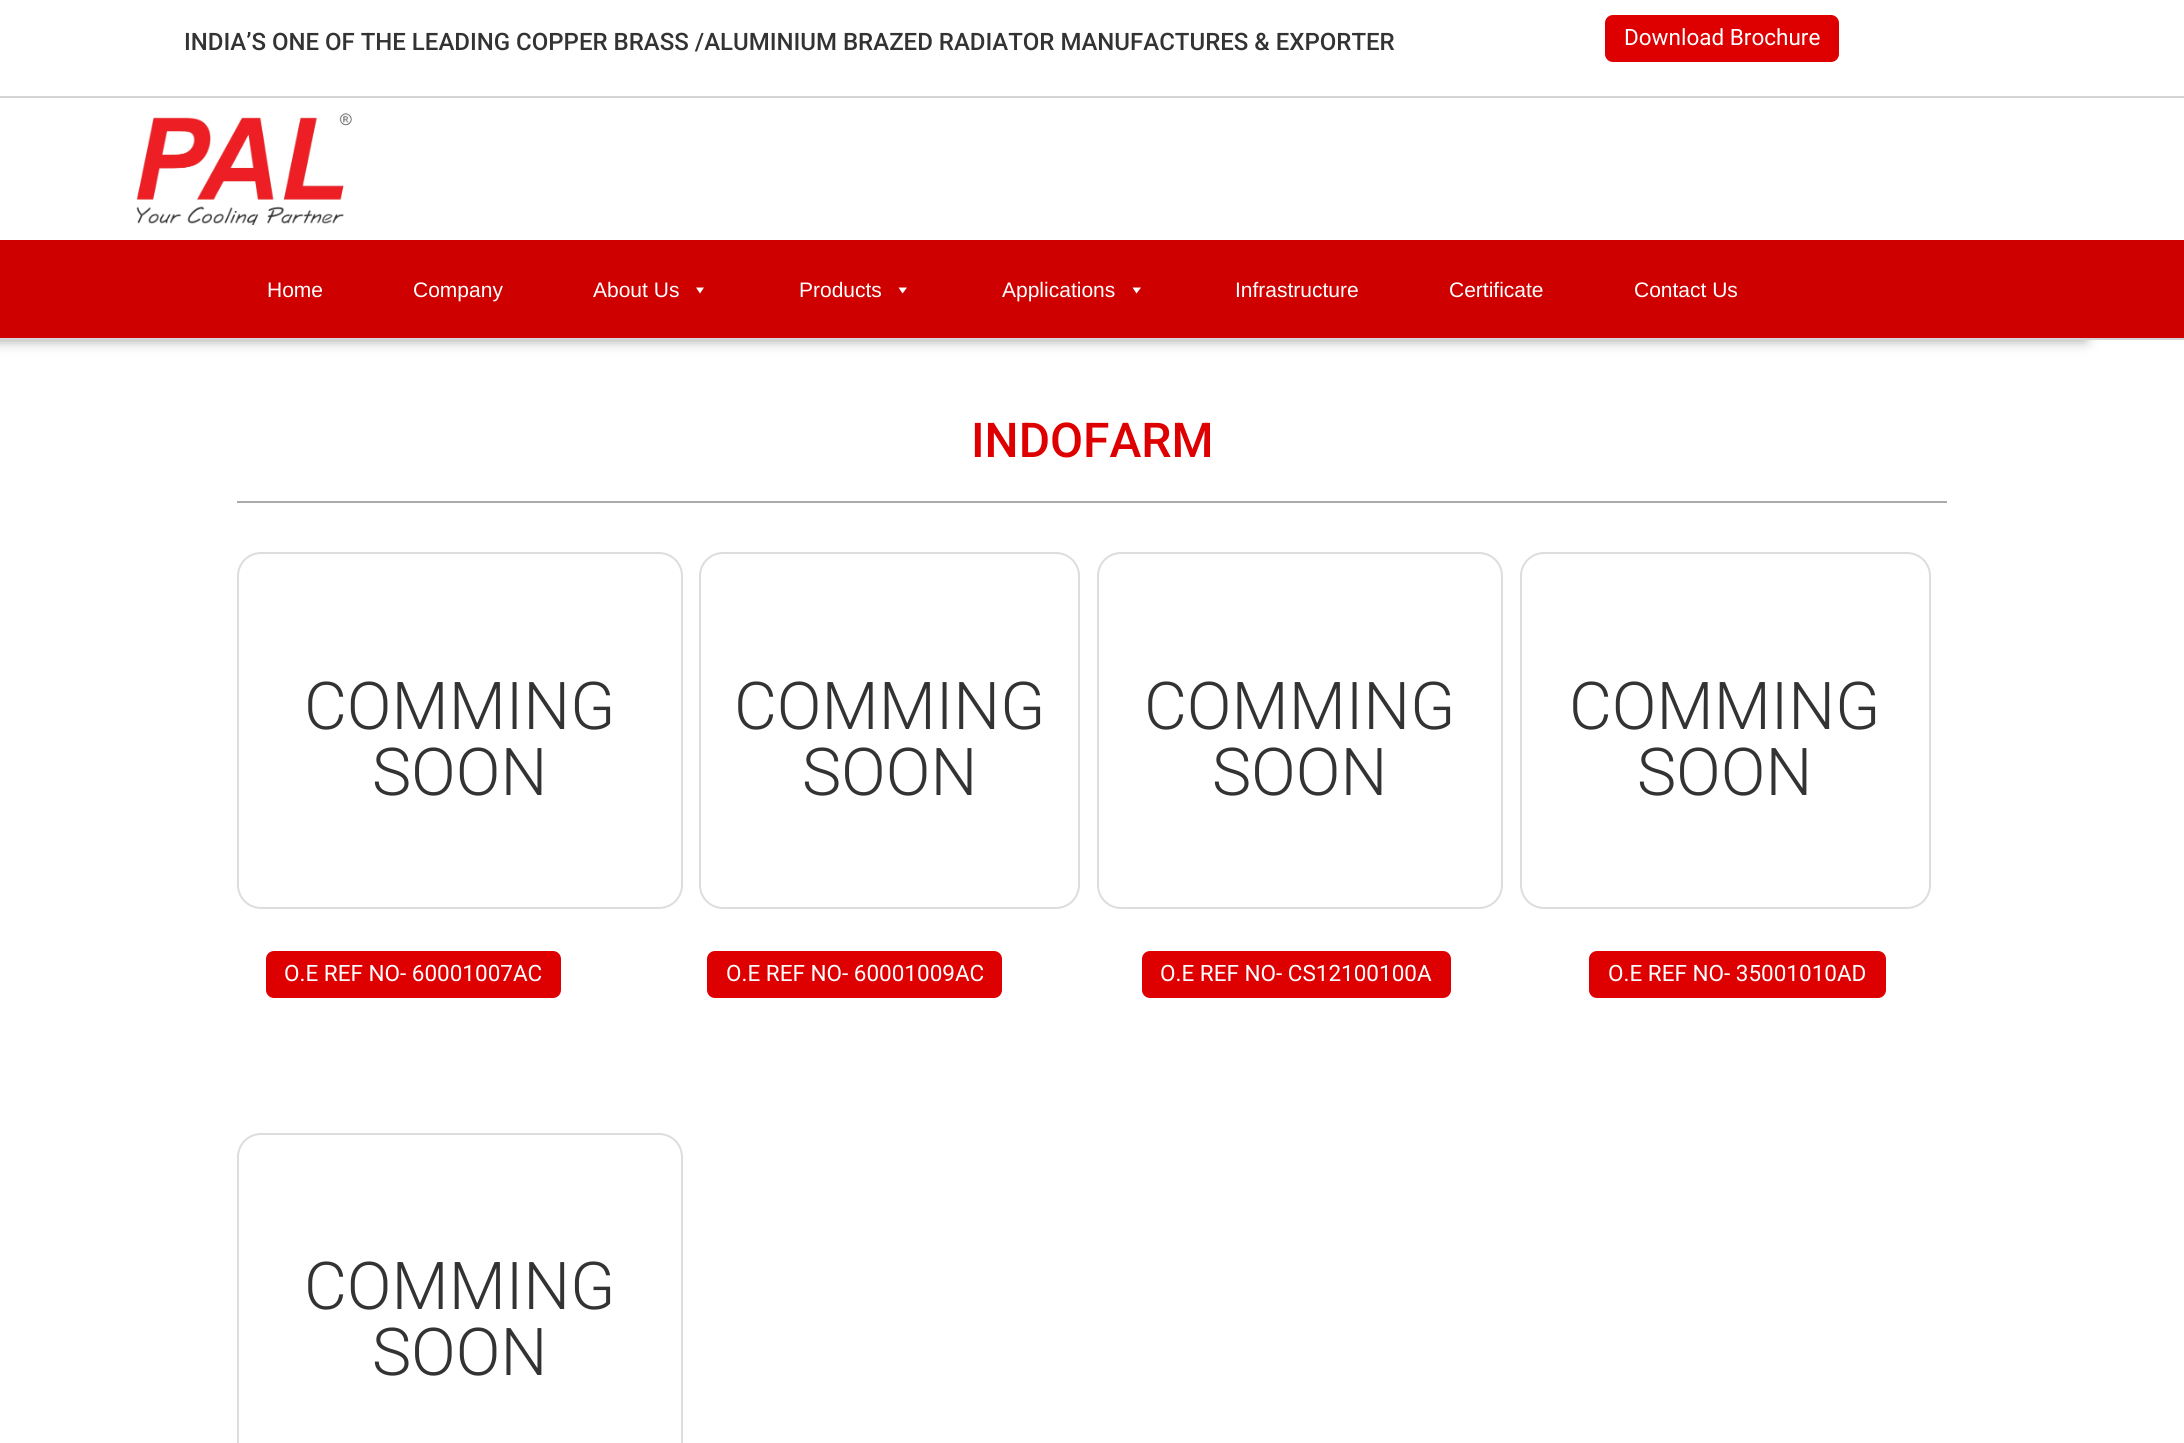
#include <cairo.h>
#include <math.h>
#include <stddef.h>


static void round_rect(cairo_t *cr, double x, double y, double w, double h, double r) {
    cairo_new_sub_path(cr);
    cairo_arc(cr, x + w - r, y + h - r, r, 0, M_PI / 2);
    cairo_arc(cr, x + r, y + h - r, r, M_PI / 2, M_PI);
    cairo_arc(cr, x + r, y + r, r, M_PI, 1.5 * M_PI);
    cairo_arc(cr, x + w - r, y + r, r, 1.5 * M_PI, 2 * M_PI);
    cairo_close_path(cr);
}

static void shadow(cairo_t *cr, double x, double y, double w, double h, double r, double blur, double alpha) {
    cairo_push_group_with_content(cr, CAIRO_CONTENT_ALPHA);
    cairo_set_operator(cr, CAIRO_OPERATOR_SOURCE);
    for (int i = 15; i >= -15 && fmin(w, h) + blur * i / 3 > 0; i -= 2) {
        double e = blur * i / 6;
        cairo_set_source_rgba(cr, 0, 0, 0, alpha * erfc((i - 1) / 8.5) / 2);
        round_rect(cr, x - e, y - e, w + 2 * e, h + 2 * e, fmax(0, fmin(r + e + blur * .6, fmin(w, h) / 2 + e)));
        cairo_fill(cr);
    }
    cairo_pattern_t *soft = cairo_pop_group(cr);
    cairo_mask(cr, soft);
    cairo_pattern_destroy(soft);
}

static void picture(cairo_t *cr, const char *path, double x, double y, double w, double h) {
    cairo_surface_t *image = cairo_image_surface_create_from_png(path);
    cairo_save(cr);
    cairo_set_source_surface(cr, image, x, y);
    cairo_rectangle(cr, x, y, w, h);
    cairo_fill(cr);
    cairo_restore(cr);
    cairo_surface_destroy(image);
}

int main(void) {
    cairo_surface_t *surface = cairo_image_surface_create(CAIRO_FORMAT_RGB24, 2184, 1443);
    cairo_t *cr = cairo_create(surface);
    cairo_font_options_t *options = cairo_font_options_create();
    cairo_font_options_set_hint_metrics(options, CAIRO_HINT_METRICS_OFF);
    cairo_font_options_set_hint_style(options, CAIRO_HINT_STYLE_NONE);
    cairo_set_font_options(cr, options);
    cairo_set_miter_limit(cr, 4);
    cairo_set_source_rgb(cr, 1, 1, 1);
    cairo_paint(cr);
    cairo_set_source_rgb(cr, 0.831, 0.831, 0.831);
    cairo_rectangle(cr, 0, 96, 2184, 2);
    cairo_fill(cr);
    cairo_select_font_face(cr, "Roboto Medium", CAIRO_FONT_SLANT_NORMAL, CAIRO_FONT_WEIGHT_NORMAL);
    cairo_set_font_size(cr, 24);
    cairo_set_source_rgb(cr, 0.2, 0.2, 0.2);
    cairo_move_to(cr, 184, 50);
    cairo_show_text(cr, "INDIA’S ONE OF THE LEADING COPPER BRASS /ALUMINIUM BRAZED RADIATOR MANUFACTURES & EXPORTER");
    cairo_set_source_rgb(cr, 0.871, 0, 0);
    round_rect(cr, 1605, 15, 234, 47, 8);
    cairo_fill(cr);
    cairo_select_font_face(cr, "Roboto", CAIRO_FONT_SLANT_NORMAL, CAIRO_FONT_WEIGHT_NORMAL);
    cairo_set_font_size(cr, 22.5);
    cairo_set_source_rgb(cr, 1, 1, 1);
    cairo_move_to(cr, 1624, 45);
    cairo_show_text(cr, "Download Brochure");
    picture(cr, "img1.png", 136, 113, 216, 112);
    cairo_set_source_rgb(cr, 0, 0, 0);
    shadow(cr, -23, 272, 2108, 66, 0, 7.5, 0.5);
    cairo_set_source_rgb(cr, 0.812, 0, 0);
    cairo_rectangle(cr, 0, 240, 2184, 98);
    cairo_fill(cr);
    cairo_set_source_rgb(cr, 0.831, 0.831, 0.831);
    cairo_rectangle(cr, 0, 338, 2184, 2);
    cairo_fill(cr);
    cairo_select_font_face(cr, "Liberation Sans", CAIRO_FONT_SLANT_NORMAL, CAIRO_FONT_WEIGHT_NORMAL);
    cairo_set_font_size(cr, 21);
    cairo_set_source_rgb(cr, 1, 1, 1);
    cairo_move_to(cr, 267, 297);
    cairo_show_text(cr, "Home");
    cairo_move_to(cr, 413, 297);
    cairo_show_text(cr, "Company");
    cairo_move_to(cr, 593, 297);
    cairo_show_text(cr, "About Us");
    cairo_new_path(cr);
    cairo_move_to(cr, 704, 287.5);
    cairo_line_to(cr, 700, 293.5);
    cairo_line_to(cr, 696, 287.5);
    cairo_close_path(cr);
    cairo_fill(cr);
    cairo_move_to(cr, 799, 297);
    cairo_show_text(cr, "Products");
    cairo_new_path(cr);
    cairo_move_to(cr, 907, 287.5);
    cairo_line_to(cr, 902.5, 293.5);
    cairo_line_to(cr, 898.5, 287.5);
    cairo_close_path(cr);
    cairo_fill(cr);
    cairo_move_to(cr, 1002, 297);
    cairo_show_text(cr, "Applications");
    cairo_new_path(cr);
    cairo_move_to(cr, 1141, 287.5);
    cairo_line_to(cr, 1136.5, 293.5);
    cairo_line_to(cr, 1132.5, 287.5);
    cairo_close_path(cr);
    cairo_fill(cr);
    cairo_move_to(cr, 1235, 297);
    cairo_show_text(cr, "Infrastructure");
    cairo_move_to(cr, 1449, 297);
    cairo_show_text(cr, "Certificate");
    cairo_move_to(cr, 1634, 297);
    cairo_show_text(cr, "Contact Us");
    cairo_select_font_face(cr, "Roboto Medium", CAIRO_FONT_SLANT_NORMAL, CAIRO_FONT_WEIGHT_NORMAL);
    cairo_set_font_size(cr, 48);
    cairo_set_source_rgb(cr, 0.871, 0, 0);
    cairo_move_to(cr, 971, 457);
    cairo_show_text(cr, "INDOFARM");
    cairo_set_source_rgb(cr, 0.675, 0.671, 0.671);
    cairo_rectangle(cr, 237, 501, 1710, 2);
    cairo_fill(cr);
    round_rect(cr, 238, 553, 444, 355, 23);
    cairo_set_source_rgb(cr, 0.875, 0.863, 0.863);
    cairo_stroke(cr);
    cairo_select_font_face(cr, "Roboto Light", CAIRO_FONT_SLANT_NORMAL, CAIRO_FONT_WEIGHT_NORMAL);
    cairo_set_font_size(cr, 66);
    cairo_set_source_rgb(cr, 0.2, 0.2, 0.2);
    cairo_move_to(cr, 304, 729);
    cairo_show_text(cr, "COMMING");
    cairo_move_to(cr, 372, 795);
    cairo_show_text(cr, "SOON");
    round_rect(cr, 700, 553, 379, 355, 23);
    cairo_set_source_rgb(cr, 0.875, 0.863, 0.863);
    cairo_stroke(cr);
    cairo_set_source_rgb(cr, 0.2, 0.2, 0.2);
    cairo_move_to(cr, 734, 729);
    cairo_show_text(cr, "COMMING");
    cairo_move_to(cr, 802, 795);
    cairo_show_text(cr, "SOON");
    round_rect(cr, 1098, 553, 404, 355, 23);
    cairo_set_source_rgb(cr, 0.875, 0.863, 0.863);
    cairo_stroke(cr);
    cairo_set_source_rgb(cr, 0.2, 0.2, 0.2);
    cairo_move_to(cr, 1144, 729);
    cairo_show_text(cr, "COMMING");
    cairo_move_to(cr, 1212, 795);
    cairo_show_text(cr, "SOON");
    round_rect(cr, 1521, 553, 409, 355, 23);
    cairo_set_source_rgb(cr, 0.875, 0.863, 0.863);
    cairo_stroke(cr);
    cairo_set_source_rgb(cr, 0.2, 0.2, 0.2);
    cairo_move_to(cr, 1569, 729);
    cairo_show_text(cr, "COMMING");
    cairo_move_to(cr, 1637, 795);
    cairo_show_text(cr, "SOON");
    cairo_set_source_rgb(cr, 0.871, 0, 0);
    round_rect(cr, 266, 951, 295, 47, 8);
    cairo_fill(cr);
    cairo_select_font_face(cr, "Roboto", CAIRO_FONT_SLANT_NORMAL, CAIRO_FONT_WEIGHT_NORMAL);
    cairo_set_font_size(cr, 22.5);
    cairo_set_source_rgb(cr, 1, 1, 1);
    cairo_move_to(cr, 284, 981);
    cairo_show_text(cr, "O.E REF NO- 60001007AC");
    cairo_set_source_rgb(cr, 0.871, 0, 0);
    round_rect(cr, 707, 951, 295, 47, 8);
    cairo_fill(cr);
    cairo_set_source_rgb(cr, 1, 1, 1);
    cairo_move_to(cr, 726, 981);
    cairo_show_text(cr, "O.E REF NO- 60001009AC");
    cairo_set_source_rgb(cr, 0.871, 0, 0);
    round_rect(cr, 1142, 951, 309, 47, 8);
    cairo_fill(cr);
    cairo_set_source_rgb(cr, 1, 1, 1);
    cairo_move_to(cr, 1160, 981);
    cairo_show_text(cr, "O.E REF NO- CS12100100A");
    cairo_set_source_rgb(cr, 0.871, 0, 0);
    round_rect(cr, 1589, 951, 297, 47, 8);
    cairo_fill(cr);
    cairo_set_source_rgb(cr, 1, 1, 1);
    cairo_move_to(cr, 1608, 981);
    cairo_show_text(cr, "O.E REF NO- 35001010AD");
    round_rect(cr, 238, 1134, 444, 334, 23);
    cairo_set_source_rgb(cr, 0.875, 0.863, 0.863);
    cairo_stroke(cr);
    cairo_select_font_face(cr, "Roboto Light", CAIRO_FONT_SLANT_NORMAL, CAIRO_FONT_WEIGHT_NORMAL);
    cairo_set_font_size(cr, 66);
    cairo_set_source_rgb(cr, 0.2, 0.2, 0.2);
    cairo_move_to(cr, 304, 1309);
    cairo_show_text(cr, "COMMING");
    cairo_move_to(cr, 372, 1375);
    cairo_show_text(cr, "SOON");
    cairo_surface_write_to_png(surface, "page.png");
    cairo_font_options_destroy(options);
    cairo_destroy(cr);
    cairo_surface_destroy(surface);
    return 0;
}
